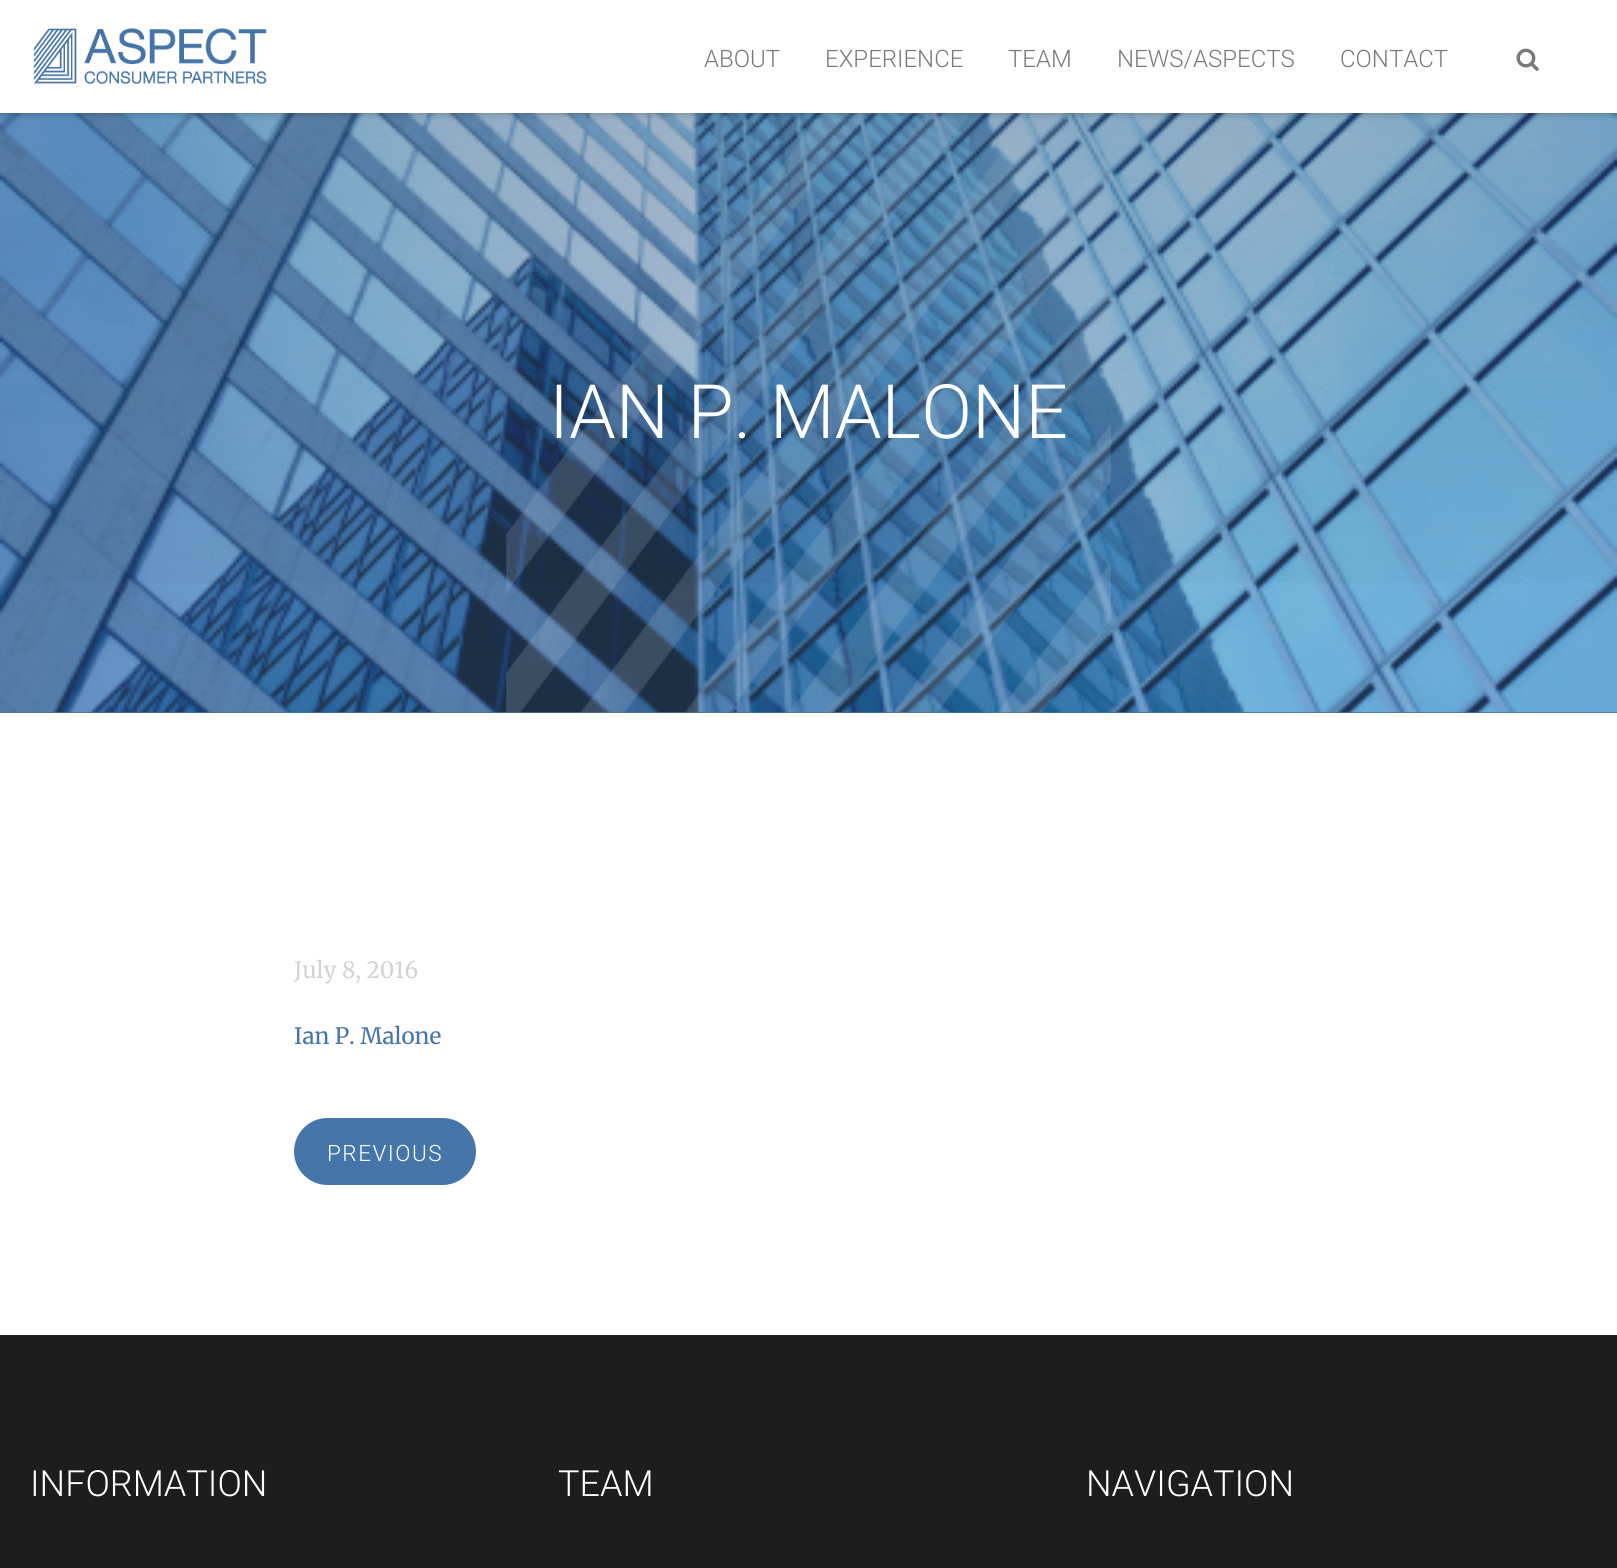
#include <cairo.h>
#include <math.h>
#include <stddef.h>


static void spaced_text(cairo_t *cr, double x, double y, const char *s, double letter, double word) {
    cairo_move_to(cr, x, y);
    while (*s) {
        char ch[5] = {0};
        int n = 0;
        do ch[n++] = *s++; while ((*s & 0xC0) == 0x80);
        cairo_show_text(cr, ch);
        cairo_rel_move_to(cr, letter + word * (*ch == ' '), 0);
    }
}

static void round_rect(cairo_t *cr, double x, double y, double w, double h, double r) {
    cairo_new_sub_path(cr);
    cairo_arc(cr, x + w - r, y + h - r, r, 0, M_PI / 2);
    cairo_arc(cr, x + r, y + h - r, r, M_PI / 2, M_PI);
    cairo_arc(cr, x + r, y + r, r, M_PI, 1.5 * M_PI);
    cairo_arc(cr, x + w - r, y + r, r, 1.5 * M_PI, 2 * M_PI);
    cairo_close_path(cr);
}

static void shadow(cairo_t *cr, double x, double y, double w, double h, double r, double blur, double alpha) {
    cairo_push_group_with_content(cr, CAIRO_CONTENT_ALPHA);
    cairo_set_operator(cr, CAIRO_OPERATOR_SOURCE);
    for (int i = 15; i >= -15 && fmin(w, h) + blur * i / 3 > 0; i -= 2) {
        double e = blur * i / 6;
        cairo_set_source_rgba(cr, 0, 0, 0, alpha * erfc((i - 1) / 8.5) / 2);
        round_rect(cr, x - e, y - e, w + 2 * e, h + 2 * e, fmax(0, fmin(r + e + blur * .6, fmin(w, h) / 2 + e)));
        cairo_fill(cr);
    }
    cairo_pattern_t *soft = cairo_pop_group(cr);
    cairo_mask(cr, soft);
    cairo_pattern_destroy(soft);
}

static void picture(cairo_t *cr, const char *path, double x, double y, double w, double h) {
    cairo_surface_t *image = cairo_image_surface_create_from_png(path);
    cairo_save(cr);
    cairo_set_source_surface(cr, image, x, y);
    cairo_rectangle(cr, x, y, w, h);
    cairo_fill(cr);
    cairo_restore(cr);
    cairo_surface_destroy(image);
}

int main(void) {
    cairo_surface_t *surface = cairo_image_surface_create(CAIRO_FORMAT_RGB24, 1617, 1568);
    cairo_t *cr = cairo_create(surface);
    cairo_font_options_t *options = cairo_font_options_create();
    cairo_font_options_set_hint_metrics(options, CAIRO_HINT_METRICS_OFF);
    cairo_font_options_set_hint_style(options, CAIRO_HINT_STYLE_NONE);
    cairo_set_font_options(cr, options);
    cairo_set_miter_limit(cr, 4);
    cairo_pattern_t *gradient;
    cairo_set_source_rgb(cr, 1, 1, 1);
    cairo_paint(cr);
    cairo_set_source_rgb(cr, 0.271, 0.459, 0.663);
    cairo_rectangle(cr, 0, 712, 1617, 1);
    cairo_fill(cr);
    picture(cr, "img4.png", 0, 113, 1617, 600);
    picture(cr, "img3.png", 506, 113, 605, 600);
    gradient = cairo_pattern_create_linear(809, 112, 809, 713);
    cairo_pattern_add_color_stop_rgba(gradient, 0, 0, 0, 0, 0.1);
    cairo_pattern_add_color_stop_rgba(gradient, 1, 0, 0, 0, 0);
    cairo_set_source(cr, gradient);
    cairo_pattern_destroy(gradient);
    cairo_rectangle(cr, 0, 113, 1617, 470);
    cairo_fill(cr);
    cairo_set_source_rgb(cr, 0, 0, 0);
    shadow(cr, 0, 0, 1617, 113, 0, 4, 0.3);
    cairo_set_source_rgb(cr, 1, 1, 1);
    cairo_rectangle(cr, 0, 0, 1617, 113);
    cairo_fill(cr);
    picture(cr, "img1.png", 33, 28, 234, 57);
    cairo_select_font_face(cr, "Roboto Light", CAIRO_FONT_SLANT_NORMAL, CAIRO_FONT_WEIGHT_NORMAL);
    cairo_set_font_size(cr, 24);
    cairo_set_source_rgb(cr, 0.475, 0.475, 0.475);
    cairo_move_to(cr, 704, 67);
    cairo_show_text(cr, "ABOUT");
    cairo_move_to(cr, 825, 67);
    cairo_show_text(cr, "EXPERIENCE");
    cairo_move_to(cr, 1008, 67);
    cairo_show_text(cr, "TEAM");
    cairo_move_to(cr, 1117, 67);
    cairo_show_text(cr, "NEWS/ASPECTS");
    cairo_move_to(cr, 1340, 67);
    cairo_show_text(cr, "CONTACT");
    picture(cr, "img2.png", 1516, 48, 23, 23);
    cairo_set_font_size(cr, 75);
    cairo_set_source_rgb(cr, 1, 1, 1);
    cairo_move_to(cr, 549, 438);
    cairo_show_text(cr, "IAN P. MALONE");
    cairo_select_font_face(cr, "Merriweather Light", CAIRO_FONT_SLANT_NORMAL, CAIRO_FONT_WEIGHT_NORMAL);
    cairo_set_font_size(cr, 22.5);
    cairo_set_source_rgb(cr, 0.827, 0.827, 0.827);
    cairo_move_to(cr, 294, 978);
    cairo_show_text(cr, "July 8, 2016");
    cairo_set_source_rgb(cr, 0.271, 0.459, 0.663);
    cairo_move_to(cr, 294, 1044);
    cairo_show_text(cr, "Ian P. Malone");
    cairo_rectangle(cr, 362, 1118, 46, 67);
    cairo_fill(cr);
    cairo_new_path(cr);
    cairo_move_to(cr, 327.5, 1118);
    cairo_line_to(cr, 362, 1118);
    cairo_line_to(cr, 362, 1185);
    cairo_line_to(cr, 327.5, 1185);
    cairo_curve_to(cr, 309, 1185, 294, 1170, 294, 1151.5);
    cairo_curve_to(cr, 294, 1133, 309, 1118, 327.5, 1118);
    cairo_close_path(cr);
    cairo_fill(cr);
    cairo_new_path(cr);
    cairo_move_to(cr, 408, 1118);
    cairo_line_to(cr, 442.5, 1118);
    cairo_curve_to(cr, 461, 1118, 476, 1133, 476, 1151.5);
    cairo_curve_to(cr, 476, 1170, 461, 1185, 442.5, 1185);
    cairo_line_to(cr, 408, 1185);
    cairo_close_path(cr);
    cairo_fill(cr);
    cairo_select_font_face(cr, "Roboto Light", CAIRO_FONT_SLANT_NORMAL, CAIRO_FONT_WEIGHT_NORMAL);
    cairo_set_source_rgb(cr, 1, 1, 1);
    spaced_text(cr, 327, 1161, "PREVIOUS", 1.5, 0);
    cairo_set_source_rgb(cr, 0.114, 0.114, 0.114);
    cairo_rectangle(cr, 0, 1335, 1617, 233);
    cairo_fill(cr);
    cairo_set_font_size(cr, 36);
    cairo_set_source_rgb(cr, 1, 1, 1);
    cairo_move_to(cr, 30, 1496);
    cairo_show_text(cr, "INFORMATION");
    cairo_move_to(cr, 558, 1496);
    cairo_show_text(cr, "TEAM");
    cairo_move_to(cr, 1086, 1496);
    cairo_show_text(cr, "NAVIGATION");
    cairo_surface_write_to_png(surface, "page.png");
    cairo_font_options_destroy(options);
    cairo_destroy(cr);
    cairo_surface_destroy(surface);
    return 0;
}
